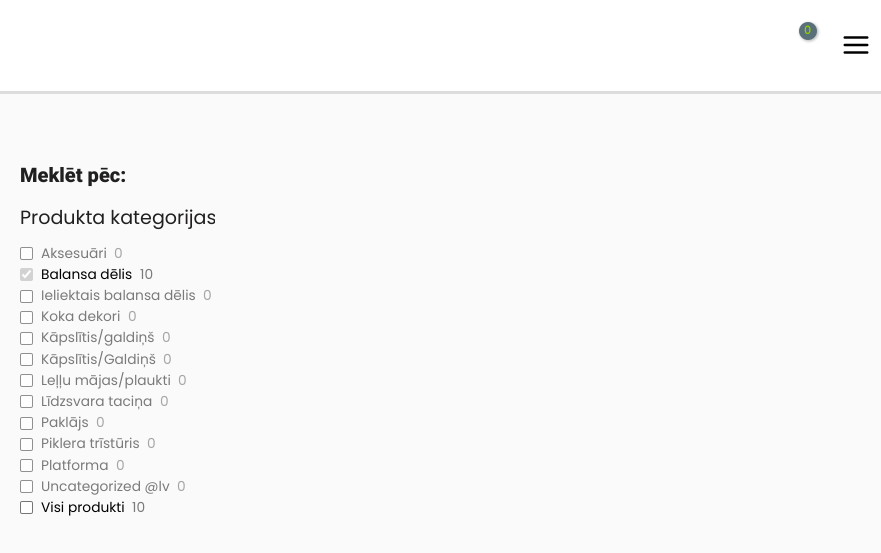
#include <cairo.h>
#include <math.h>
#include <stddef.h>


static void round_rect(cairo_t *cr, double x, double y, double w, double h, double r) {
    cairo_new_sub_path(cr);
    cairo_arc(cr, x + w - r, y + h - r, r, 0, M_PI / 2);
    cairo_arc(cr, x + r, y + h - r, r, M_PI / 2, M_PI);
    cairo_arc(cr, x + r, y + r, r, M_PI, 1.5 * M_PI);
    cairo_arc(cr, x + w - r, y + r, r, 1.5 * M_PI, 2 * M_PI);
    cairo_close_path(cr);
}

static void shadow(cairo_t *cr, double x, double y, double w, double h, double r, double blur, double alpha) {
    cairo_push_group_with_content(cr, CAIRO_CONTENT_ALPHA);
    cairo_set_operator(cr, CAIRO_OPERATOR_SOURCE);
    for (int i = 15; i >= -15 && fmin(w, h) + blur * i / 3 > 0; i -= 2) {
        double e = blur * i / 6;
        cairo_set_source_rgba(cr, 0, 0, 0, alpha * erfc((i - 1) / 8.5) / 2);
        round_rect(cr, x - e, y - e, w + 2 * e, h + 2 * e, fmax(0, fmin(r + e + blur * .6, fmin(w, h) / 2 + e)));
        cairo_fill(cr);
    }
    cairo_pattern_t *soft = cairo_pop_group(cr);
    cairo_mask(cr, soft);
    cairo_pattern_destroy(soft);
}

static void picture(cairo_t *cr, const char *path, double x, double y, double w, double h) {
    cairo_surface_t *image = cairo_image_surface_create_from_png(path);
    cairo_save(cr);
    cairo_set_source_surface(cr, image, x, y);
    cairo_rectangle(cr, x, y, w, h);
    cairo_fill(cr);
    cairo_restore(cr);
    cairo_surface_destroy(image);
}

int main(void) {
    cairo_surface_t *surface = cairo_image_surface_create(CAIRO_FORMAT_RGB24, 881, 553);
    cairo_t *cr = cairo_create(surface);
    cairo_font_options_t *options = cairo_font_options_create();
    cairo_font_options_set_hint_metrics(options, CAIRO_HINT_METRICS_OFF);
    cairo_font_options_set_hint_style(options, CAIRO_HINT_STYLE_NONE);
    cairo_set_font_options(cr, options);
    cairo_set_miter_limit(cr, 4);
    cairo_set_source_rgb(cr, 0.98, 0.98, 0.98);
    cairo_paint(cr);
    cairo_set_source_rgb(cr, 1, 1, 1);
    cairo_rectangle(cr, 0, 0, 881, 91);
    cairo_fill(cr);
    cairo_set_source_rgb(cr, 0.867, 0.867, 0.867);
    cairo_rectangle(cr, 0, 91, 881, 3);
    cairo_fill(cr);
    cairo_set_source_rgb(cr, 0, 0, 0);
    shadow(cr, 800, 23, 18, 18, 9, 1.5, 0.3);
    cairo_set_source_rgb(cr, 0.353, 0.439, 0.475);
    cairo_arc(cr, 808, 31, 9, 0, 2 * M_PI);
    cairo_fill(cr);
    cairo_select_font_face(cr, "Poppins", CAIRO_FONT_SLANT_NORMAL, CAIRO_FONT_WEIGHT_BOLD);
    cairo_set_font_size(cr, 11);
    cairo_set_source_rgb(cr, 0.561, 0.82, 0);
    cairo_move_to(cr, 804, 34);
    cairo_show_text(cr, "0");
    picture(cr, "img1.png", 843, 36, 26, 18);
    cairo_select_font_face(cr, "Roboto Black", CAIRO_FONT_SLANT_NORMAL, CAIRO_FONT_WEIGHT_NORMAL);
    cairo_set_font_size(cr, 20);
    cairo_set_source_rgb(cr, 0.129, 0.122, 0.125);
    cairo_move_to(cr, 20, 182);
    cairo_show_text(cr, "Meklēt pēc:");
    cairo_select_font_face(cr, "Poppins", CAIRO_FONT_SLANT_NORMAL, CAIRO_FONT_WEIGHT_NORMAL);
    cairo_set_font_size(cr, 19.1);
    cairo_move_to(cr, 20, 224);
    cairo_show_text(cr, "Produkta kategorijas");
    cairo_set_source_rgb(cr, 0.996, 0.996, 0.996);
    round_rect(cr, 20.5, 247.5, 12, 12, 1.5);
    cairo_fill_preserve(cr);
    cairo_set_source_rgb(cr, 0.565, 0.565, 0.565);
    cairo_set_line_width(cr, 1);
    cairo_stroke(cr);
    cairo_set_font_size(cr, 13.75);
    cairo_set_source_rgb(cr, 0.478, 0.478, 0.478);
    cairo_move_to(cr, 41, 258);
    cairo_show_text(cr, "Aksesuāri");
    cairo_set_source_rgb(cr, 0.655, 0.651, 0.651);
    cairo_move_to(cr, 114, 258);
    cairo_show_text(cr, "0");
    cairo_set_source_rgb(cr, 0.824, 0.824, 0.824);
    round_rect(cr, 20, 268, 13, 13, 2);
    cairo_fill(cr);
    cairo_new_path(cr);
    cairo_move_to(cr, 22.5, 274.5);
    cairo_line_to(cr, 25, 277);
    cairo_line_to(cr, 30.5, 270.5);
    cairo_set_source_rgb(cr, 1, 1, 1);
    cairo_set_line_width(cr, 2.1);
    cairo_stroke(cr);
    cairo_set_source_rgb(cr, 0, 0, 0);
    cairo_move_to(cr, 41, 279);
    cairo_show_text(cr, "Balansa dēlis");
    cairo_set_source_rgb(cr, 0.478, 0.478, 0.478);
    cairo_move_to(cr, 140, 279);
    cairo_show_text(cr, "10");
    cairo_set_source_rgb(cr, 0.996, 0.996, 0.996);
    round_rect(cr, 20.5, 290.5, 12, 12, 1.5);
    cairo_fill_preserve(cr);
    cairo_set_source_rgb(cr, 0.565, 0.565, 0.565);
    cairo_set_line_width(cr, 1);
    cairo_stroke(cr);
    cairo_set_source_rgb(cr, 0.478, 0.478, 0.478);
    cairo_move_to(cr, 41, 300);
    cairo_show_text(cr, "Ieliektais balansa dēlis");
    cairo_set_source_rgb(cr, 0.655, 0.651, 0.651);
    cairo_move_to(cr, 203, 300);
    cairo_show_text(cr, "0");
    cairo_set_source_rgb(cr, 0.996, 0.996, 0.996);
    round_rect(cr, 20.5, 311.5, 12, 12, 1.5);
    cairo_fill_preserve(cr);
    cairo_set_source_rgb(cr, 0.565, 0.565, 0.565);
    cairo_stroke(cr);
    cairo_set_source_rgb(cr, 0.478, 0.478, 0.478);
    cairo_move_to(cr, 41, 321);
    cairo_show_text(cr, "Koka dekori");
    cairo_set_source_rgb(cr, 0.655, 0.651, 0.651);
    cairo_move_to(cr, 128, 321);
    cairo_show_text(cr, "0");
    cairo_set_source_rgb(cr, 0.996, 0.996, 0.996);
    round_rect(cr, 20.5, 332.5, 12, 12, 1.5);
    cairo_fill_preserve(cr);
    cairo_set_source_rgb(cr, 0.565, 0.565, 0.565);
    cairo_stroke(cr);
    cairo_set_source_rgb(cr, 0.478, 0.478, 0.478);
    cairo_move_to(cr, 41, 342);
    cairo_show_text(cr, "Kāpslītis/galdiņš");
    cairo_set_source_rgb(cr, 0.655, 0.651, 0.651);
    cairo_move_to(cr, 162, 342);
    cairo_show_text(cr, "0");
    cairo_set_source_rgb(cr, 0.996, 0.996, 0.996);
    round_rect(cr, 20.5, 353.5, 12, 12, 1.5);
    cairo_fill_preserve(cr);
    cairo_set_source_rgb(cr, 0.565, 0.565, 0.565);
    cairo_stroke(cr);
    cairo_set_source_rgb(cr, 0.478, 0.478, 0.478);
    cairo_move_to(cr, 41, 364);
    cairo_show_text(cr, "Kāpslītis/Galdiņš");
    cairo_set_source_rgb(cr, 0.655, 0.651, 0.651);
    cairo_move_to(cr, 163, 364);
    cairo_show_text(cr, "0");
    cairo_set_source_rgb(cr, 0.996, 0.996, 0.996);
    round_rect(cr, 20.5, 374.5, 12, 12, 1.5);
    cairo_fill_preserve(cr);
    cairo_set_source_rgb(cr, 0.565, 0.565, 0.565);
    cairo_stroke(cr);
    cairo_set_source_rgb(cr, 0.478, 0.478, 0.478);
    cairo_move_to(cr, 41, 385);
    cairo_show_text(cr, "Leļļu mājas/plaukti");
    cairo_set_source_rgb(cr, 0.655, 0.651, 0.651);
    cairo_move_to(cr, 178, 385);
    cairo_show_text(cr, "0");
    cairo_set_source_rgb(cr, 0.996, 0.996, 0.996);
    round_rect(cr, 20.5, 395.5, 12, 12, 1.5);
    cairo_fill_preserve(cr);
    cairo_set_source_rgb(cr, 0.565, 0.565, 0.565);
    cairo_stroke(cr);
    cairo_set_source_rgb(cr, 0.478, 0.478, 0.478);
    cairo_move_to(cr, 41, 406);
    cairo_show_text(cr, "Līdzsvara taciņa");
    cairo_set_source_rgb(cr, 0.655, 0.651, 0.651);
    cairo_move_to(cr, 160, 406);
    cairo_show_text(cr, "0");
    cairo_set_source_rgb(cr, 0.996, 0.996, 0.996);
    round_rect(cr, 20.5, 417.5, 12, 12, 1.5);
    cairo_fill_preserve(cr);
    cairo_set_source_rgb(cr, 0.565, 0.565, 0.565);
    cairo_stroke(cr);
    cairo_set_source_rgb(cr, 0.478, 0.478, 0.478);
    cairo_move_to(cr, 41, 427);
    cairo_show_text(cr, "Paklājs");
    cairo_set_source_rgb(cr, 0.655, 0.651, 0.651);
    cairo_move_to(cr, 96, 427);
    cairo_show_text(cr, "0");
    cairo_set_source_rgb(cr, 0.996, 0.996, 0.996);
    round_rect(cr, 20.5, 438.5, 12, 12, 1.5);
    cairo_fill_preserve(cr);
    cairo_set_source_rgb(cr, 0.565, 0.565, 0.565);
    cairo_stroke(cr);
    cairo_set_source_rgb(cr, 0.478, 0.478, 0.478);
    cairo_move_to(cr, 41, 448);
    cairo_show_text(cr, "Piklera trīstūris");
    cairo_set_source_rgb(cr, 0.655, 0.651, 0.651);
    cairo_move_to(cr, 147, 448);
    cairo_show_text(cr, "0");
    cairo_set_source_rgb(cr, 0.996, 0.996, 0.996);
    round_rect(cr, 20.5, 459.5, 12, 12, 1.5);
    cairo_fill_preserve(cr);
    cairo_set_source_rgb(cr, 0.565, 0.565, 0.565);
    cairo_stroke(cr);
    cairo_set_source_rgb(cr, 0.478, 0.478, 0.478);
    cairo_move_to(cr, 41, 470);
    cairo_show_text(cr, "Platforma");
    cairo_set_source_rgb(cr, 0.655, 0.651, 0.651);
    cairo_move_to(cr, 116, 470);
    cairo_show_text(cr, "0");
    cairo_set_source_rgb(cr, 0.996, 0.996, 0.996);
    round_rect(cr, 20.5, 480.5, 12, 12, 1.5);
    cairo_fill_preserve(cr);
    cairo_set_source_rgb(cr, 0.565, 0.565, 0.565);
    cairo_stroke(cr);
    cairo_set_source_rgb(cr, 0.478, 0.478, 0.478);
    cairo_move_to(cr, 41, 491);
    cairo_show_text(cr, "Uncategorized @lv");
    cairo_set_source_rgb(cr, 0.655, 0.651, 0.651);
    cairo_move_to(cr, 177, 491);
    cairo_show_text(cr, "0");
    cairo_set_source_rgb(cr, 1, 1, 1);
    round_rect(cr, 20.5, 501.5, 12, 12, 1.5);
    cairo_fill_preserve(cr);
    cairo_set_source_rgb(cr, 0.463, 0.463, 0.463);
    cairo_stroke(cr);
    cairo_set_source_rgb(cr, 0, 0, 0);
    cairo_move_to(cr, 41, 512);
    cairo_show_text(cr, "Visi produkti");
    cairo_set_source_rgb(cr, 0.478, 0.478, 0.478);
    cairo_move_to(cr, 132, 512);
    cairo_show_text(cr, "10");
    cairo_surface_write_to_png(surface, "page.png");
    cairo_font_options_destroy(options);
    cairo_destroy(cr);
    cairo_surface_destroy(surface);
    return 0;
}
